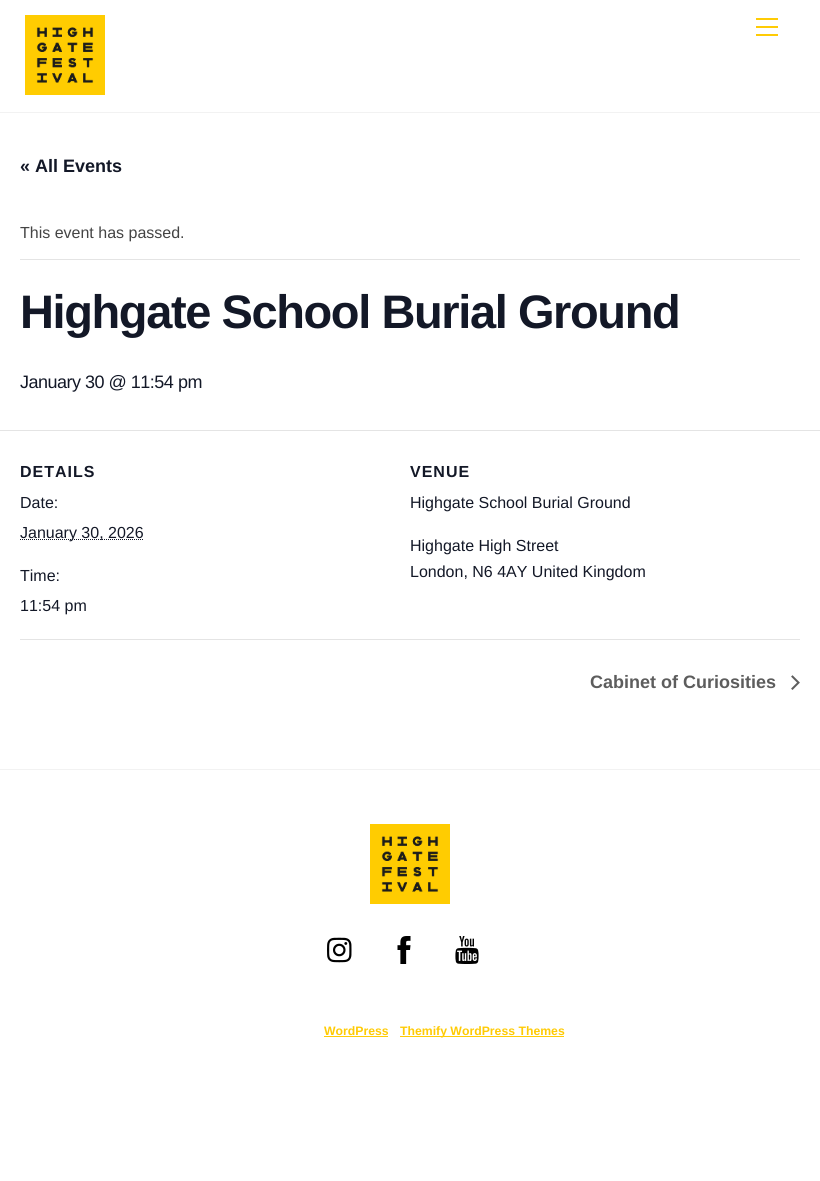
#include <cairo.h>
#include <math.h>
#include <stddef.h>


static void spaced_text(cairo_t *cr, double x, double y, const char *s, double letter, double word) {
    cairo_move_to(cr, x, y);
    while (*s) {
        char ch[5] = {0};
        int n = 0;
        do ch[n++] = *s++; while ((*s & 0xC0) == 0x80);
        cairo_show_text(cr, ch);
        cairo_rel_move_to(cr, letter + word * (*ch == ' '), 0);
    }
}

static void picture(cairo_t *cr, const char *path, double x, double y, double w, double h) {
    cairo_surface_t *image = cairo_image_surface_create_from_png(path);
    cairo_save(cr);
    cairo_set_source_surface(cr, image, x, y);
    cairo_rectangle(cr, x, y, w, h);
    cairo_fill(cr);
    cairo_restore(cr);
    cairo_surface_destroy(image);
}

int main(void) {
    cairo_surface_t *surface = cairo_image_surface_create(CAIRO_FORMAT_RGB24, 820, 1181);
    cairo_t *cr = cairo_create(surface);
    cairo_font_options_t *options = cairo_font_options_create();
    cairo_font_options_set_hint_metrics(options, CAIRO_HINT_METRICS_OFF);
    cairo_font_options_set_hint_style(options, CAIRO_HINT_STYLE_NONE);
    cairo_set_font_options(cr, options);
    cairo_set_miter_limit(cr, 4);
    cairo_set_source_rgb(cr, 1, 1, 1);
    cairo_paint(cr);
    cairo_set_source_rgb(cr, 0.949, 0.949, 0.949);
    cairo_rectangle(cr, 0, 112, 820, 1);
    cairo_fill(cr);
    picture(cr, "img1.png", 25, 15, 80, 80);
    cairo_set_source_rgb(cr, 1, 0.796, 0.02);
    cairo_rectangle(cr, 756, 34, 22, 2);
    cairo_fill(cr);
    cairo_rectangle(cr, 756, 18, 22, 2);
    cairo_fill(cr);
    cairo_rectangle(cr, 756, 26, 22, 2);
    cairo_fill(cr);
    cairo_select_font_face(cr, "Liberation Sans", CAIRO_FONT_SLANT_NORMAL, CAIRO_FONT_WEIGHT_BOLD);
    cairo_set_font_size(cr, 18);
    cairo_set_source_rgb(cr, 0.078, 0.094, 0.153);
    cairo_move_to(cr, 20, 172);
    cairo_show_text(cr, "« All Events");
    cairo_set_source_rgb(cr, 0.894, 0.894, 0.894);
    cairo_rectangle(cr, 20, 259, 780, 1);
    cairo_fill(cr);
    cairo_select_font_face(cr, "Liberation Sans", CAIRO_FONT_SLANT_NORMAL, CAIRO_FONT_WEIGHT_NORMAL);
    cairo_set_font_size(cr, 16);
    cairo_set_source_rgb(cr, 0.267, 0.267, 0.267);
    cairo_move_to(cr, 20, 238);
    cairo_show_text(cr, "This event has passed.");
    cairo_select_font_face(cr, "Liberation Sans", CAIRO_FONT_SLANT_NORMAL, CAIRO_FONT_WEIGHT_BOLD);
    cairo_set_font_size(cr, 47);
    cairo_set_source_rgb(cr, 0.078, 0.094, 0.153);
    spaced_text(cr, 20, 328, "Highgate School Burial Ground", -1.4, 0);
    cairo_select_font_face(cr, "Liberation Sans", CAIRO_FONT_SLANT_NORMAL, CAIRO_FONT_WEIGHT_NORMAL);
    cairo_set_font_size(cr, 18);
    spaced_text(cr, 20, 388, "January 30 @ 11:54 pm", -0.5, 0);
    cairo_set_source_rgb(cr, 0.894, 0.894, 0.894);
    cairo_rectangle(cr, 0, 430, 820, 1);
    cairo_fill(cr);
    cairo_select_font_face(cr, "Liberation Sans", CAIRO_FONT_SLANT_NORMAL, CAIRO_FONT_WEIGHT_BOLD);
    cairo_set_font_size(cr, 16);
    cairo_set_source_rgb(cr, 0.078, 0.094, 0.153);
    spaced_text(cr, 20, 477, "DETAILS", 1, 0);
    cairo_select_font_face(cr, "Liberation Sans", CAIRO_FONT_SLANT_NORMAL, CAIRO_FONT_WEIGHT_NORMAL);
    cairo_move_to(cr, 20, 508);
    cairo_show_text(cr, "Date:");
    cairo_new_path(cr);
    cairo_move_to(cr, 20, 539.5);
    cairo_line_to(cr, 143.5, 539.5);
    cairo_set_line_width(cr, 1);
    cairo_set_dash(cr, (double[]){1, 1}, 2, 0);
    cairo_stroke(cr);
    cairo_move_to(cr, 20, 538);
    cairo_show_text(cr, "January 30, 2026");
    cairo_move_to(cr, 20, 581);
    cairo_show_text(cr, "Time:");
    cairo_move_to(cr, 20, 611);
    cairo_show_text(cr, "11:54 pm");
    cairo_select_font_face(cr, "Liberation Sans", CAIRO_FONT_SLANT_NORMAL, CAIRO_FONT_WEIGHT_BOLD);
    spaced_text(cr, 410, 477, "VENUE", 1, 0);
    cairo_select_font_face(cr, "Liberation Sans", CAIRO_FONT_SLANT_NORMAL, CAIRO_FONT_WEIGHT_NORMAL);
    cairo_move_to(cr, 410, 508);
    cairo_show_text(cr, "Highgate School Burial Ground");
    cairo_move_to(cr, 410, 551);
    cairo_show_text(cr, "Highgate High Street");
    cairo_move_to(cr, 410, 577);
    cairo_show_text(cr, "London, N6 4AY United Kingdom");
    cairo_set_source_rgb(cr, 0.894, 0.894, 0.894);
    cairo_rectangle(cr, 20, 639, 780, 1);
    cairo_fill(cr);
    cairo_select_font_face(cr, "Liberation Sans", CAIRO_FONT_SLANT_NORMAL, CAIRO_FONT_WEIGHT_BOLD);
    cairo_set_font_size(cr, 18);
    cairo_set_source_rgb(cr, 0.365, 0.365, 0.365);
    cairo_move_to(cr, 590, 688);
    cairo_show_text(cr, "Cabinet of Curiosities");
    picture(cr, "img2.png", 791, 675, 9, 15);
    cairo_set_source_rgb(cr, 0.949, 0.949, 0.949);
    cairo_rectangle(cr, 0, 769, 820, 1);
    cairo_fill(cr);
    picture(cr, "img1.png", 370, 824, 80, 80);
    picture(cr, "img3.png", 327, 937, 25, 26);
    picture(cr, "img4.png", 397, 936, 14, 28);
    picture(cr, "img5.png", 455, 936, 24, 28);
    cairo_set_font_size(cr, 12.25);
    cairo_set_source_rgb(cr, 1, 0.796, 0.02);
    cairo_move_to(cr, 324, 1035);
    cairo_show_text(cr, "WordPress");
    cairo_rectangle(cr, 324, 1036, 64, 1);
    cairo_fill(cr);
    cairo_rectangle(cr, 400, 1036, 164, 1);
    cairo_fill(cr);
    cairo_move_to(cr, 400, 1035);
    cairo_show_text(cr, "Themify WordPress Themes");
    cairo_surface_write_to_png(surface, "page.png");
    cairo_font_options_destroy(options);
    cairo_destroy(cr);
    cairo_surface_destroy(surface);
    return 0;
}
